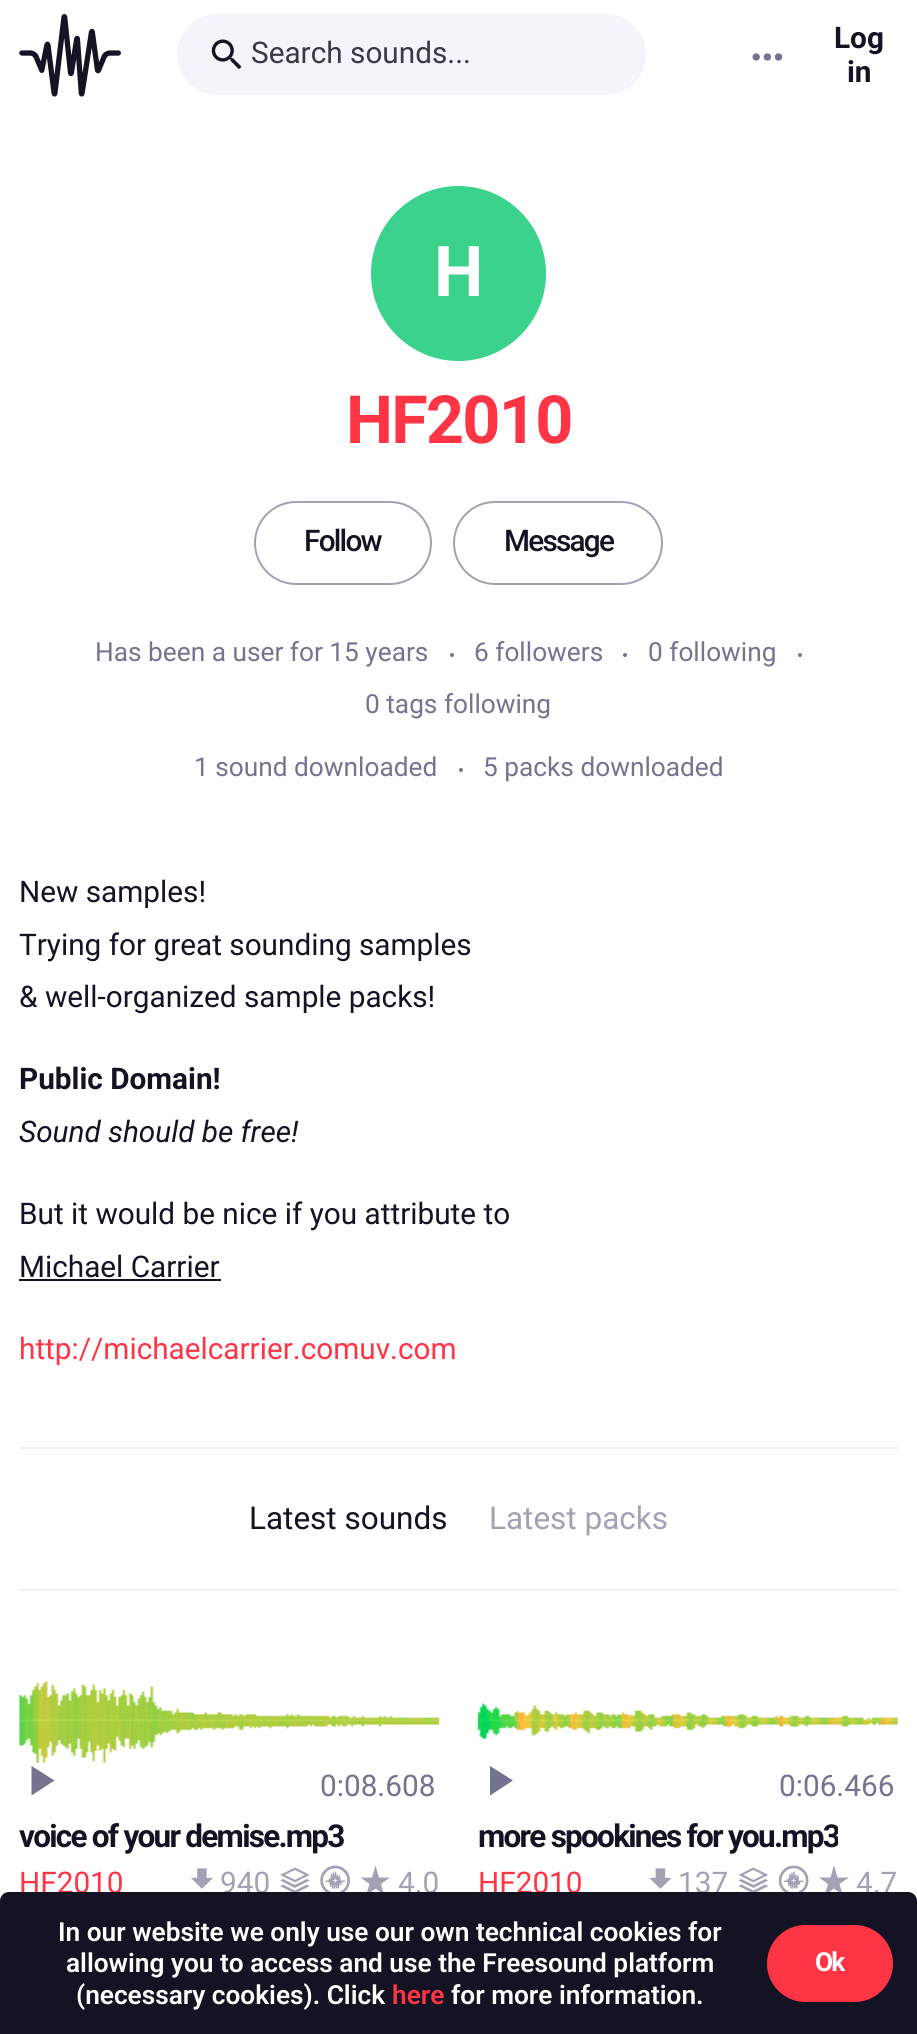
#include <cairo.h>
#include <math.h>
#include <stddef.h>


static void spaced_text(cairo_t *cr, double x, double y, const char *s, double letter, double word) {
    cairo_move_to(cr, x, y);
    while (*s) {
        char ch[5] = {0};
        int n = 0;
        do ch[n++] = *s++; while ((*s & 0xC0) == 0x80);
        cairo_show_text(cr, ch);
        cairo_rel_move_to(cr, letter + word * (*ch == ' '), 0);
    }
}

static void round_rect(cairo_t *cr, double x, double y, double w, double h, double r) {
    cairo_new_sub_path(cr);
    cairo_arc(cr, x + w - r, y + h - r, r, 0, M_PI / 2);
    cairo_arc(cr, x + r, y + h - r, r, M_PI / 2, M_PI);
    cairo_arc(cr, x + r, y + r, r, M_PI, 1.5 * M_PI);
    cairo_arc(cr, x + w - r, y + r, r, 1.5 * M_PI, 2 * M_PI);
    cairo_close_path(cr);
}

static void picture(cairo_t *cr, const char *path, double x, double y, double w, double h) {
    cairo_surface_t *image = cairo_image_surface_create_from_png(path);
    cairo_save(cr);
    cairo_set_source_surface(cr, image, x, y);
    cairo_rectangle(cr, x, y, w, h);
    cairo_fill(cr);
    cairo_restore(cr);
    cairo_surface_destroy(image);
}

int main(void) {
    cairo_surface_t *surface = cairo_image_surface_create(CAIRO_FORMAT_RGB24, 917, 2034);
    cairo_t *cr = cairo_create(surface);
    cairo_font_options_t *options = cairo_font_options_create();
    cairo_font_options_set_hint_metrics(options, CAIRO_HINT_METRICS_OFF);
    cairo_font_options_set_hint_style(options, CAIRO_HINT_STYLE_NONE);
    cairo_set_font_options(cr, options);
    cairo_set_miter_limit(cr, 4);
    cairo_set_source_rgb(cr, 1, 1, 1);
    cairo_paint(cr);
    picture(cr, "img1.png", 19, 14, 102, 83);
    cairo_set_source_rgb(cr, 0.957, 0.957, 0.98);
    round_rect(cr, 177, 14, 469, 81, 40.5);
    cairo_fill(cr);
    picture(cr, "img2.png", 211, 39, 31, 31);
    cairo_select_font_face(cr, "Roboto", CAIRO_FONT_SLANT_NORMAL, CAIRO_FONT_WEIGHT_NORMAL);
    cairo_set_font_size(cr, 29.75);
    cairo_set_source_rgb(cr, 0.224, 0.224, 0.278);
    cairo_move_to(cr, 251, 63);
    cairo_show_text(cr, "Search sounds...");
    picture(cr, "img3.png", 752, 53, 31, 8);
    cairo_select_font_face(cr, "Roboto", CAIRO_FONT_SLANT_NORMAL, CAIRO_FONT_WEIGHT_BOLD);
    cairo_set_source_rgb(cr, 0.078, 0.078, 0.141);
    cairo_move_to(cr, 834, 48);
    cairo_show_text(cr, "Log");
    cairo_move_to(cr, 847, 82);
    cairo_show_text(cr, "in");
    cairo_set_source_rgb(cr, 0.227, 0.824, 0.553);
    cairo_new_path(cr);
    cairo_arc(cr, 458.5, 273.5, 87.5, 0, 2 * M_PI);
    cairo_fill(cr);
    cairo_set_font_size(cr, 70);
    cairo_set_source_rgb(cr, 1, 1, 1);
    cairo_move_to(cr, 434, 296);
    cairo_show_text(cr, "H");
    cairo_set_font_size(cr, 66.5);
    cairo_set_source_rgb(cr, 1, 0.208, 0.275);
    spaced_text(cr, 346, 443, "HF2010", -1.75, 0);
    round_rect(cr, 255, 502, 176, 82, 41);
    cairo_set_source_rgb(cr, 0.635, 0.635, 0.706);
    cairo_stroke(cr);
    cairo_select_font_face(cr, "Roboto Medium", CAIRO_FONT_SLANT_NORMAL, CAIRO_FONT_WEIGHT_NORMAL);
    cairo_set_font_size(cr, 29.75);
    cairo_set_source_rgb(cr, 0.078, 0.078, 0.141);
    spaced_text(cr, 304, 551, "Follow", -1.75, 0);
    round_rect(cr, 454, 502, 208, 82, 41);
    cairo_set_source_rgb(cr, 0.635, 0.635, 0.706);
    cairo_stroke(cr);
    cairo_set_source_rgb(cr, 0.078, 0.078, 0.141);
    spaced_text(cr, 504, 551, "Message", -1.75, 0);
    cairo_select_font_face(cr, "Roboto", CAIRO_FONT_SLANT_NORMAL, CAIRO_FONT_WEIGHT_NORMAL);
    cairo_set_font_size(cr, 26.25);
    cairo_set_source_rgb(cr, 0.455, 0.455, 0.565);
    cairo_move_to(cr, 95, 661);
    cairo_show_text(cr, "Has been a user for 15 years");
    cairo_new_path(cr);
    cairo_arc(cr, 452, 655, 2, 0, 2 * M_PI);
    cairo_fill(cr);
    cairo_move_to(cr, 474, 661);
    cairo_show_text(cr, "6 followers");
    cairo_new_path(cr);
    cairo_arc(cr, 625, 655, 2, 0, 2 * M_PI);
    cairo_fill(cr);
    cairo_move_to(cr, 648, 661);
    cairo_show_text(cr, "0 following");
    cairo_new_path(cr);
    cairo_arc(cr, 800, 655, 2, 0, 2 * M_PI);
    cairo_fill(cr);
    cairo_move_to(cr, 365, 713);
    cairo_show_text(cr, "0 tags following");
    cairo_move_to(cr, 194, 776);
    cairo_show_text(cr, "1 sound downloaded");
    cairo_new_path(cr);
    cairo_arc(cr, 461, 770, 2, 0, 2 * M_PI);
    cairo_fill(cr);
    cairo_move_to(cr, 483, 776);
    cairo_show_text(cr, "5 packs downloaded");
    cairo_set_font_size(cr, 29.75);
    cairo_set_source_rgb(cr, 0.078, 0.078, 0.141);
    cairo_move_to(cr, 19, 902);
    cairo_show_text(cr, "New samples!");
    cairo_move_to(cr, 19, 955);
    cairo_show_text(cr, "Trying for great sounding samples");
    cairo_move_to(cr, 19, 1007);
    cairo_show_text(cr, "& well-organized sample packs!");
    cairo_select_font_face(cr, "Roboto", CAIRO_FONT_SLANT_NORMAL, CAIRO_FONT_WEIGHT_BOLD);
    cairo_move_to(cr, 19, 1089);
    cairo_show_text(cr, "Public Domain!");
    cairo_select_font_face(cr, "Roboto", CAIRO_FONT_SLANT_ITALIC, CAIRO_FONT_WEIGHT_NORMAL);
    cairo_move_to(cr, 19, 1142);
    cairo_show_text(cr, "Sound should be free!");
    cairo_select_font_face(cr, "Roboto", CAIRO_FONT_SLANT_NORMAL, CAIRO_FONT_WEIGHT_NORMAL);
    cairo_move_to(cr, 19, 1224);
    cairo_show_text(cr, "But it would be nice if you attribute to");
    cairo_move_to(cr, 19, 1277);
    cairo_show_text(cr, "Michael Carrier");
    cairo_rectangle(cr, 19, 1279, 202, 2);
    cairo_fill(cr);
    cairo_set_source_rgb(cr, 1, 0.208, 0.275);
    cairo_move_to(cr, 19, 1359);
    cairo_show_text(cr, "http://michaelcarrier.comuv.com");
    cairo_set_source_rgb(cr, 0.945, 0.945, 0.957);
    cairo_rectangle(cr, 19, 1447, 879, 2);
    cairo_fill(cr);
    cairo_set_font_size(cr, 31.5);
    cairo_set_source_rgb(cr, 0.078, 0.078, 0.141);
    cairo_move_to(cr, 249, 1529);
    cairo_show_text(cr, "Latest sounds");
    cairo_set_source_rgb(cr, 0.635, 0.635, 0.706);
    cairo_move_to(cr, 489, 1529);
    cairo_show_text(cr, "Latest packs");
    cairo_set_source_rgb(cr, 0.945, 0.945, 0.957);
    cairo_rectangle(cr, 19, 1589, 879, 2);
    cairo_fill(cr);
    picture(cr, "img4.png", 19, 1681, 421, 83);
    cairo_set_source_rgb(cr, 0.455, 0.455, 0.565);
    cairo_new_path(cr);
    cairo_move_to(cr, 31.5, 1766);
    cairo_line_to(cr, 31.5, 1795.5);
    cairo_line_to(cr, 54.5, 1780.5);
    cairo_close_path(cr);
    cairo_fill(cr);
    cairo_set_font_size(cr, 29.75);
    cairo_move_to(cr, 320, 1796);
    cairo_show_text(cr, "0:08.608");
    cairo_select_font_face(cr, "Roboto", CAIRO_FONT_SLANT_NORMAL, CAIRO_FONT_WEIGHT_BOLD);
    cairo_set_font_size(cr, 31.5);
    cairo_set_source_rgb(cr, 0.078, 0.078, 0.141);
    spaced_text(cr, 19, 1847, "voice of your demise.mp3", -1.75, 0);
    cairo_select_font_face(cr, "Roboto", CAIRO_FONT_SLANT_NORMAL, CAIRO_FONT_WEIGHT_NORMAL);
    cairo_set_font_size(cr, 29.75);
    cairo_set_source_rgb(cr, 1, 0.208, 0.275);
    cairo_move_to(cr, 19, 1893);
    cairo_show_text(cr, "HF2010");
    picture(cr, "img5.png", 191, 1868, 22, 21);
    cairo_set_source_rgb(cr, 0.635, 0.635, 0.706);
    cairo_move_to(cr, 220, 1893);
    cairo_show_text(cr, "940");
    picture(cr, "img6.png", 280, 1867, 30, 25);
    picture(cr, "img7.png", 320, 1865, 30, 27);
    cairo_new_path(cr);
    cairo_move_to(cr, 375.5, 1888.5);
    cairo_line_to(cr, 384.5, 1895.5);
    cairo_line_to(cr, 381, 1884);
    cairo_line_to(cr, 390, 1877.5);
    cairo_line_to(cr, 379, 1877.5);
    cairo_line_to(cr, 375.5, 1865.5);
    cairo_line_to(cr, 372, 1877.5);
    cairo_line_to(cr, 360.5, 1877.5);
    cairo_line_to(cr, 369.5, 1884);
    cairo_line_to(cr, 366, 1895.5);
    cairo_close_path(cr);
    cairo_fill(cr);
    cairo_move_to(cr, 398, 1893);
    cairo_show_text(cr, "4.0");
    picture(cr, "img8.png", 477, 1703, 421, 36);
    cairo_set_source_rgb(cr, 0.455, 0.455, 0.565);
    cairo_new_path(cr);
    cairo_move_to(cr, 490, 1766);
    cairo_line_to(cr, 490, 1795.5);
    cairo_line_to(cr, 513, 1780.5);
    cairo_close_path(cr);
    cairo_fill(cr);
    cairo_move_to(cr, 779, 1796);
    cairo_show_text(cr, "0:06.466");
    cairo_save(cr);
    cairo_rectangle(cr, 478, 1818, 360, 39);
    cairo_clip(cr);
    cairo_select_font_face(cr, "Roboto", CAIRO_FONT_SLANT_NORMAL, CAIRO_FONT_WEIGHT_BOLD);
    cairo_set_font_size(cr, 31.5);
    cairo_set_source_rgb(cr, 0.078, 0.078, 0.141);
    spaced_text(cr, 478, 1847, "more spookines for you.mp3", -1.75, 0);
    cairo_restore(cr);
    cairo_set_source_rgb(cr, 1, 0.208, 0.275);
    cairo_move_to(cr, 478, 1893);
    cairo_show_text(cr, "HF2010");
    picture(cr, "img9.png", 649, 1868, 23, 21);
    cairo_set_source_rgb(cr, 0.635, 0.635, 0.706);
    cairo_move_to(cr, 678, 1893);
    cairo_show_text(cr, "137");
    picture(cr, "img10.png", 738, 1867, 30, 25);
    picture(cr, "img11.png", 778, 1865, 31, 27);
    cairo_new_path(cr);
    cairo_move_to(cr, 834, 1888.5);
    cairo_line_to(cr, 843, 1895.5);
    cairo_line_to(cr, 839.5, 1884);
    cairo_line_to(cr, 849, 1877.5);
    cairo_line_to(cr, 837.5, 1877.5);
    cairo_line_to(cr, 834, 1865.5);
    cairo_line_to(cr, 830.5, 1877.5);
    cairo_line_to(cr, 819, 1877.5);
    cairo_line_to(cr, 828, 1884);
    cairo_line_to(cr, 824.5, 1895.5);
    cairo_close_path(cr);
    cairo_fill(cr);
    cairo_move_to(cr, 856, 1893);
    cairo_show_text(cr, "4.7");
    cairo_set_source_rgb(cr, 0.078, 0.078, 0.141);
    cairo_new_path(cr);
    cairo_move_to(cr, 9, 1892);
    cairo_line_to(cr, 908, 1892);
    cairo_curve_to(cr, 913, 1892, 917, 1896, 917, 1901);
    cairo_line_to(cr, 917, 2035);
    cairo_line_to(cr, 0, 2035);
    cairo_line_to(cr, 0, 1901);
    cairo_curve_to(cr, 0, 1896, 4, 1892, 9, 1892);
    cairo_close_path(cr);
    cairo_fill(cr);
    cairo_select_font_face(cr, "Roboto SemiBold", CAIRO_FONT_SLANT_NORMAL, CAIRO_FONT_WEIGHT_NORMAL);
    cairo_set_font_size(cr, 26.25);
    cairo_set_source_rgb(cr, 1, 1, 1);
    cairo_move_to(cr, 58, 1941);
    cairo_show_text(cr, "In our website we only use our own technical cookies for");
    cairo_move_to(cr, 66, 1972);
    cairo_show_text(cr, "allowing you to access and use the Freesound platform");
    cairo_move_to(cr, 76, 2004);
    cairo_show_text(cr, "(necessary cookies). Click");
    cairo_set_source_rgb(cr, 1, 0.208, 0.275);
    cairo_move_to(cr, 392, 2004);
    cairo_show_text(cr, "here");
    cairo_set_source_rgb(cr, 1, 1, 1);
    cairo_move_to(cr, 451, 2004);
    cairo_show_text(cr, "for more information.");
    cairo_set_source_rgb(cr, 1, 0.208, 0.275);
    round_rect(cr, 767, 1925, 126, 77, 38.5);
    cairo_fill(cr);
    cairo_select_font_face(cr, "Roboto", CAIRO_FONT_SLANT_NORMAL, CAIRO_FONT_WEIGHT_BOLD);
    cairo_set_source_rgb(cr, 1, 1, 1);
    spaced_text(cr, 815, 1971, "Ok", -1.75, 0);
    cairo_surface_write_to_png(surface, "page.png");
    cairo_font_options_destroy(options);
    cairo_destroy(cr);
    cairo_surface_destroy(surface);
    return 0;
}
